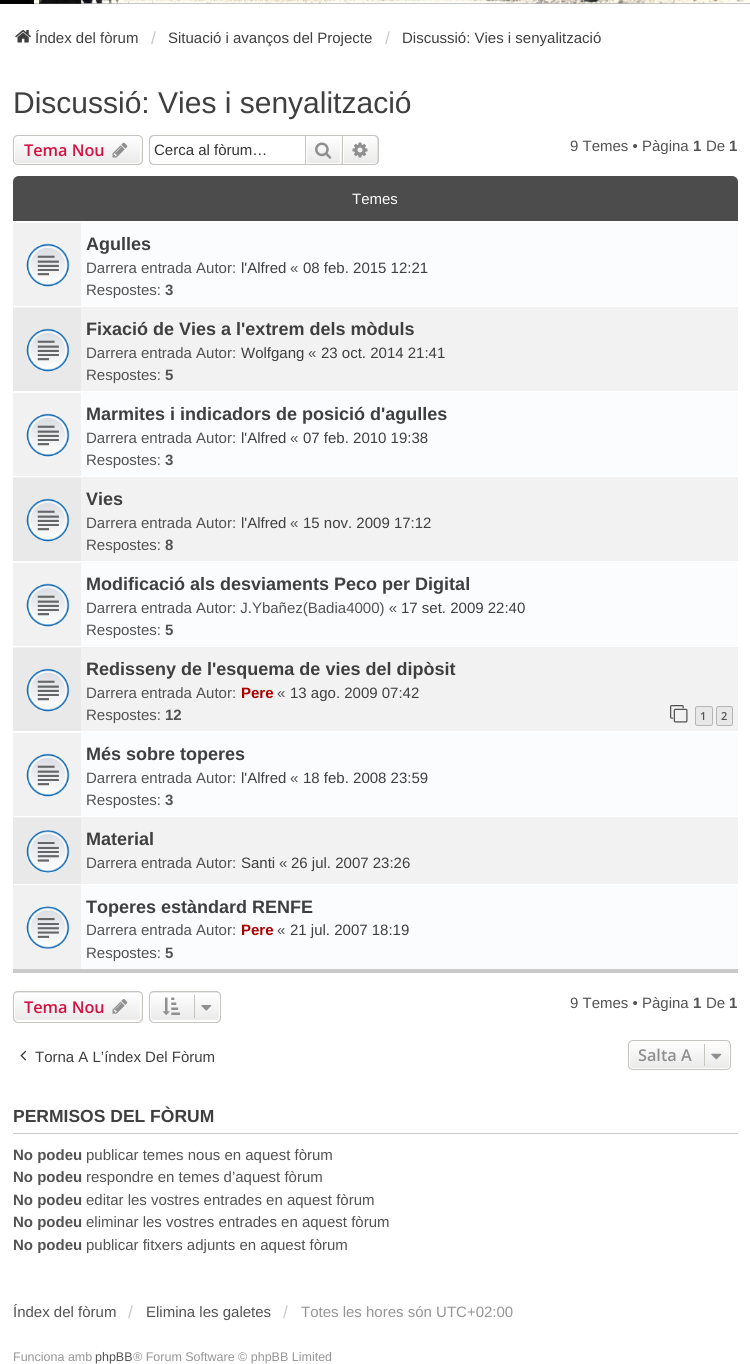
#include <cairo.h>
#include <math.h>
#include <stddef.h>


static void round_rect(cairo_t *cr, double x, double y, double w, double h, double r) {
    cairo_new_sub_path(cr);
    cairo_arc(cr, x + w - r, y + h - r, r, 0, M_PI / 2);
    cairo_arc(cr, x + r, y + h - r, r, M_PI / 2, M_PI);
    cairo_arc(cr, x + r, y + r, r, M_PI, 1.5 * M_PI);
    cairo_arc(cr, x + w - r, y + r, r, 1.5 * M_PI, 2 * M_PI);
    cairo_close_path(cr);
}

static void picture(cairo_t *cr, const char *path, double x, double y, double w, double h) {
    cairo_surface_t *image = cairo_image_surface_create_from_png(path);
    cairo_save(cr);
    cairo_set_source_surface(cr, image, x, y);
    cairo_rectangle(cr, x, y, w, h);
    cairo_fill(cr);
    cairo_restore(cr);
    cairo_surface_destroy(image);
}

int main(void) {
    cairo_surface_t *surface = cairo_image_surface_create(CAIRO_FORMAT_RGB24, 750, 1364);
    cairo_t *cr = cairo_create(surface);
    cairo_font_options_t *options = cairo_font_options_create();
    cairo_font_options_set_hint_metrics(options, CAIRO_HINT_METRICS_OFF);
    cairo_font_options_set_hint_style(options, CAIRO_HINT_STYLE_NONE);
    cairo_set_font_options(cr, options);
    cairo_set_miter_limit(cr, 4);
    cairo_pattern_t *gradient;
    cairo_set_source_rgb(cr, 1, 1, 1);
    cairo_paint(cr);
    cairo_set_source_rgb(cr, 0.706, 0.706, 0.706);
    cairo_rectangle(cr, 0, 3, 750, 1);
    cairo_fill(cr);
    picture(cr, "img1.png", 0, 0, 750, 4);
    cairo_set_source_rgba(cr, 0, 0, 0, 0.95);
    cairo_rectangle(cr, 0, 0, 34, 4);
    cairo_fill(cr);
    cairo_set_source_rgba(cr, 0.039, 0.039, 0.039, 0.7);
    cairo_rectangle(cr, 39, 0, 42, 4);
    cairo_fill(cr);
    picture(cr, "img2.png", 15, 30, 16, 13);
    cairo_select_font_face(cr, "Liberation Sans", CAIRO_FONT_SLANT_NORMAL, CAIRO_FONT_WEIGHT_NORMAL);
    cairo_set_font_size(cr, 15);
    cairo_set_source_rgb(cr, 0.247, 0.247, 0.247);
    cairo_move_to(cr, 35, 43);
    cairo_show_text(cr, "Índex del fòrum");
    cairo_set_font_size(cr, 17.5);
    cairo_set_source_rgb(cr, 0.792, 0.792, 0.792);
    cairo_move_to(cr, 151, 44);
    cairo_show_text(cr, "/");
    cairo_set_font_size(cr, 15);
    cairo_set_source_rgb(cr, 0.247, 0.247, 0.247);
    cairo_move_to(cr, 168, 43);
    cairo_show_text(cr, "Situació i avanços del Projecte");
    cairo_set_font_size(cr, 17.5);
    cairo_set_source_rgb(cr, 0.792, 0.792, 0.792);
    cairo_move_to(cr, 385, 44);
    cairo_show_text(cr, "/");
    cairo_set_font_size(cr, 15);
    cairo_set_source_rgb(cr, 0.247, 0.247, 0.247);
    cairo_move_to(cr, 402, 43);
    cairo_show_text(cr, "Discussió: Vies i senyalització");
    cairo_set_font_size(cr, 30);
    cairo_move_to(cr, 13, 113);
    cairo_show_text(cr, "Discussió: Vies i senyalització");
    cairo_save(cr);
    round_rect(cr, 13, 135, 130, 30, 5);
    cairo_clip(cr);
    gradient = cairo_pattern_create_linear(78, 136, 78, 164);
    cairo_pattern_add_color_stop_rgba(gradient, 0, 1, 1, 1, 1);
    cairo_pattern_add_color_stop_rgba(gradient, 1, 0.914, 0.914, 0.914, 1);
    cairo_set_source(cr, gradient);
    cairo_pattern_destroy(gradient);
    cairo_rectangle(cr, 13, 136, 130, 28);
    cairo_fill(cr);
    cairo_restore(cr);
    round_rect(cr, 14.5, 136.5, 126, 27, 3.5);
    cairo_set_source_rgb(cr, 1, 1, 1);
    cairo_set_line_width(cr, 1);
    cairo_stroke(cr);
    round_rect(cr, 13.5, 135.5, 129, 29, 4.5);
    cairo_set_source_rgb(cr, 0.78, 0.765, 0.749);
    cairo_stroke(cr);
    cairo_select_font_face(cr, "Open Sans SemiBold", CAIRO_FONT_SLANT_NORMAL, CAIRO_FONT_WEIGHT_NORMAL);
    cairo_set_font_size(cr, 16.25);
    cairo_set_source_rgb(cr, 0.827, 0.067, 0.255);
    cairo_move_to(cr, 24, 156);
    cairo_show_text(cr, "Tema Nou");
    picture(cr, "img3.png", 112, 142, 16, 16);
    cairo_set_source_rgb(cr, 0.78, 0.765, 0.749);
    cairo_set_fill_rule(cr, CAIRO_FILL_RULE_EVEN_ODD);
    cairo_new_path(cr);
    cairo_move_to(cr, 154, 135);
    cairo_line_to(cr, 305, 135);
    cairo_line_to(cr, 305, 165);
    cairo_line_to(cr, 154, 165);
    cairo_curve_to(cr, 151, 165, 149, 163, 149, 160);
    cairo_line_to(cr, 149, 140);
    cairo_curve_to(cr, 149, 137, 151, 135, 154, 135);
    cairo_close_path(cr);
    cairo_move_to(cr, 154, 136);
    cairo_line_to(cr, 305, 136);
    cairo_line_to(cr, 305, 164);
    cairo_line_to(cr, 154, 164);
    cairo_curve_to(cr, 152, 164, 150, 162, 150, 160);
    cairo_line_to(cr, 150, 140);
    cairo_curve_to(cr, 150, 138, 152, 136, 154, 136);
    cairo_close_path(cr);
    cairo_fill(cr);
    cairo_select_font_face(cr, "Liberation Sans", CAIRO_FONT_SLANT_NORMAL, CAIRO_FONT_WEIGHT_NORMAL);
    cairo_set_font_size(cr, 15);
    cairo_set_source_rgb(cr, 0.2, 0.2, 0.2);
    cairo_move_to(cr, 154, 155);
    cairo_show_text(cr, "Cerca al fòrum…");
    gradient = cairo_pattern_create_linear(324, 136, 324, 164);
    cairo_pattern_add_color_stop_rgba(gradient, 0, 1, 1, 1, 1);
    cairo_pattern_add_color_stop_rgba(gradient, 1, 0.914, 0.914, 0.914, 1);
    cairo_set_source(cr, gradient);
    cairo_pattern_destroy(gradient);
    cairo_rectangle(cr, 307, 139, 35, 25);
    cairo_fill(cr);
    cairo_rectangle(cr, 306.5, 136.5, 34, 27);
    cairo_set_source_rgb(cr, 1, 1, 1);
    cairo_stroke(cr);
    cairo_rectangle(cr, 305.5, 135.5, 37, 29);
    cairo_set_source_rgb(cr, 0.78, 0.765, 0.749);
    cairo_stroke(cr);
    picture(cr, "img4.png", 315, 142, 17, 17);
    gradient = cairo_pattern_create_linear(360, 136, 360, 164);
    cairo_pattern_add_color_stop_rgba(gradient, 0, 1, 1, 1, 1);
    cairo_pattern_add_color_stop_rgba(gradient, 1, 0.914, 0.914, 0.914, 1);
    cairo_set_source(cr, gradient);
    cairo_pattern_destroy(gradient);
    cairo_new_path(cr);
    cairo_move_to(cr, 343.5, 136.5);
    cairo_line_to(cr, 374, 136.5);
    cairo_curve_to(cr, 376, 136.5, 377.5, 138, 377.5, 140);
    cairo_line_to(cr, 377.5, 160);
    cairo_curve_to(cr, 377.5, 162, 376, 163.5, 374, 163.5);
    cairo_line_to(cr, 343.5, 163.5);
    cairo_close_path(cr);
    cairo_fill_preserve(cr);
    cairo_set_source_rgb(cr, 1, 1, 1);
    cairo_stroke(cr);
    cairo_set_source_rgb(cr, 0.78, 0.765, 0.749);
    cairo_new_path(cr);
    cairo_move_to(cr, 342.5, 135);
    cairo_line_to(cr, 374, 135);
    cairo_curve_to(cr, 376.5, 135, 379, 137, 379, 140);
    cairo_line_to(cr, 379, 160);
    cairo_curve_to(cr, 379, 163, 376.5, 165, 374, 165);
    cairo_line_to(cr, 342.5, 165);
    cairo_close_path(cr);
    cairo_move_to(cr, 342.5, 136);
    cairo_line_to(cr, 374, 136);
    cairo_curve_to(cr, 376, 136, 377.5, 138, 377.5, 140);
    cairo_line_to(cr, 377.5, 160);
    cairo_curve_to(cr, 377.5, 162, 376, 164, 374, 164);
    cairo_line_to(cr, 342.5, 164);
    cairo_close_path(cr);
    cairo_fill(cr);
    picture(cr, "img5.png", 352, 142, 16, 16);
    cairo_set_source_rgb(cr, 0.322, 0.322, 0.322);
    cairo_move_to(cr, 570, 151);
    cairo_show_text(cr, "9 Temes • Pàgina");
    cairo_select_font_face(cr, "Liberation Sans", CAIRO_FONT_SLANT_NORMAL, CAIRO_FONT_WEIGHT_BOLD);
    cairo_move_to(cr, 693, 151);
    cairo_show_text(cr, "1");
    cairo_select_font_face(cr, "Liberation Sans", CAIRO_FONT_SLANT_NORMAL, CAIRO_FONT_WEIGHT_NORMAL);
    cairo_move_to(cr, 706, 151);
    cairo_show_text(cr, "De");
    cairo_select_font_face(cr, "Liberation Sans", CAIRO_FONT_SLANT_NORMAL, CAIRO_FONT_WEIGHT_BOLD);
    cairo_move_to(cr, 729, 151);
    cairo_show_text(cr, "1");
    cairo_set_source_rgb(cr, 0.298, 0.298, 0.298);
    cairo_new_path(cr);
    cairo_move_to(cr, 19, 176);
    cairo_line_to(cr, 732, 176);
    cairo_curve_to(cr, 735.5, 176, 738, 178.5, 738, 182);
    cairo_line_to(cr, 738, 973);
    cairo_line_to(cr, 13, 973);
    cairo_line_to(cr, 13, 182);
    cairo_curve_to(cr, 13, 178.5, 15.5, 176, 19, 176);
    cairo_close_path(cr);
    cairo_fill(cr);
    cairo_set_source_rgb(cr, 0.792, 0.792, 0.792);
    cairo_rectangle(cr, 13, 969, 725, 4);
    cairo_fill(cr);
    cairo_select_font_face(cr, "Liberation Sans", CAIRO_FONT_SLANT_NORMAL, CAIRO_FONT_WEIGHT_NORMAL);
    cairo_set_source_rgb(cr, 1, 1, 1);
    cairo_move_to(cr, 352, 204);
    cairo_show_text(cr, "Temes");
    cairo_set_source_rgb(cr, 0.98, 0.988, 0.996);
    cairo_rectangle(cr, 13, 222, 725, 747);
    cairo_fill(cr);
    cairo_set_source_rgb(cr, 1, 1, 1);
    cairo_rectangle(cr, 13, 221, 725, 1);
    cairo_fill(cr);
    cairo_set_source_rgb(cr, 0.945, 0.945, 0.945);
    cairo_rectangle(cr, 13, 223, 68, 83);
    cairo_fill(cr);
    picture(cr, "img6.png", 26, 243, 44, 44);
    cairo_select_font_face(cr, "Liberation Sans", CAIRO_FONT_SLANT_NORMAL, CAIRO_FONT_WEIGHT_BOLD);
    cairo_set_font_size(cr, 18);
    cairo_set_source_rgb(cr, 0.247, 0.247, 0.247);
    cairo_move_to(cr, 86, 250);
    cairo_show_text(cr, "Agulles");
    cairo_select_font_face(cr, "Liberation Sans", CAIRO_FONT_SLANT_NORMAL, CAIRO_FONT_WEIGHT_NORMAL);
    cairo_set_font_size(cr, 15);
    cairo_set_source_rgb(cr, 0.322, 0.322, 0.322);
    cairo_move_to(cr, 86, 273);
    cairo_show_text(cr, "Darrera entrada Autor:");
    cairo_set_source_rgb(cr, 0.247, 0.247, 0.247);
    cairo_move_to(cr, 241, 273);
    cairo_show_text(cr, "l'Alfred");
    cairo_set_source_rgb(cr, 0.322, 0.322, 0.322);
    cairo_move_to(cr, 290, 273);
    cairo_show_text(cr, "«");
    cairo_set_source_rgb(cr, 0.247, 0.247, 0.247);
    cairo_move_to(cr, 303, 273);
    cairo_show_text(cr, "08 feb. 2015 12:21");
    cairo_set_source_rgb(cr, 0.322, 0.322, 0.322);
    cairo_move_to(cr, 86, 295);
    cairo_show_text(cr, "Respostes:");
    cairo_select_font_face(cr, "Liberation Sans", CAIRO_FONT_SLANT_NORMAL, CAIRO_FONT_WEIGHT_BOLD);
    cairo_move_to(cr, 165, 295);
    cairo_show_text(cr, "3");
    cairo_set_source_rgb(cr, 0.949, 0.949, 0.949);
    cairo_rectangle(cr, 13, 307, 725, 84);
    cairo_fill(cr);
    cairo_set_source_rgb(cr, 1, 1, 1);
    cairo_rectangle(cr, 13, 306, 725, 1);
    cairo_fill(cr);
    cairo_set_source_rgb(cr, 0.914, 0.914, 0.914);
    cairo_rectangle(cr, 13, 308, 68, 83);
    cairo_fill(cr);
    picture(cr, "img7.png", 26, 328, 44, 44);
    cairo_set_font_size(cr, 18);
    cairo_set_source_rgb(cr, 0.247, 0.247, 0.247);
    cairo_move_to(cr, 86, 335);
    cairo_show_text(cr, "Fixació de Vies a l'extrem dels mòduls");
    cairo_select_font_face(cr, "Liberation Sans", CAIRO_FONT_SLANT_NORMAL, CAIRO_FONT_WEIGHT_NORMAL);
    cairo_set_font_size(cr, 15);
    cairo_set_source_rgb(cr, 0.322, 0.322, 0.322);
    cairo_move_to(cr, 86, 358);
    cairo_show_text(cr, "Darrera entrada Autor:");
    cairo_set_source_rgb(cr, 0.247, 0.247, 0.247);
    cairo_move_to(cr, 241, 358);
    cairo_show_text(cr, "Wolfgang");
    cairo_set_source_rgb(cr, 0.322, 0.322, 0.322);
    cairo_move_to(cr, 308, 358);
    cairo_show_text(cr, "«");
    cairo_set_source_rgb(cr, 0.247, 0.247, 0.247);
    cairo_move_to(cr, 321, 358);
    cairo_show_text(cr, "23 oct. 2014 21:41");
    cairo_set_source_rgb(cr, 0.322, 0.322, 0.322);
    cairo_move_to(cr, 86, 380);
    cairo_show_text(cr, "Respostes:");
    cairo_select_font_face(cr, "Liberation Sans", CAIRO_FONT_SLANT_NORMAL, CAIRO_FONT_WEIGHT_BOLD);
    cairo_move_to(cr, 165, 380);
    cairo_show_text(cr, "5");
    cairo_set_source_rgb(cr, 1, 1, 1);
    cairo_rectangle(cr, 13, 391, 725, 1);
    cairo_fill(cr);
    cairo_set_source_rgb(cr, 0.945, 0.945, 0.945);
    cairo_rectangle(cr, 13, 393, 68, 83);
    cairo_fill(cr);
    picture(cr, "img6.png", 26, 413, 44, 44);
    cairo_set_font_size(cr, 18);
    cairo_set_source_rgb(cr, 0.247, 0.247, 0.247);
    cairo_move_to(cr, 86, 420);
    cairo_show_text(cr, "Marmites i indicadors de posició d'agulles");
    cairo_select_font_face(cr, "Liberation Sans", CAIRO_FONT_SLANT_NORMAL, CAIRO_FONT_WEIGHT_NORMAL);
    cairo_set_font_size(cr, 15);
    cairo_set_source_rgb(cr, 0.322, 0.322, 0.322);
    cairo_move_to(cr, 86, 443);
    cairo_show_text(cr, "Darrera entrada Autor:");
    cairo_set_source_rgb(cr, 0.247, 0.247, 0.247);
    cairo_move_to(cr, 241, 443);
    cairo_show_text(cr, "l'Alfred");
    cairo_set_source_rgb(cr, 0.322, 0.322, 0.322);
    cairo_move_to(cr, 290, 443);
    cairo_show_text(cr, "«");
    cairo_set_source_rgb(cr, 0.247, 0.247, 0.247);
    cairo_move_to(cr, 303, 443);
    cairo_show_text(cr, "07 feb. 2010 19:38");
    cairo_set_source_rgb(cr, 0.322, 0.322, 0.322);
    cairo_move_to(cr, 86, 465);
    cairo_show_text(cr, "Respostes:");
    cairo_select_font_face(cr, "Liberation Sans", CAIRO_FONT_SLANT_NORMAL, CAIRO_FONT_WEIGHT_BOLD);
    cairo_move_to(cr, 165, 465);
    cairo_show_text(cr, "3");
    cairo_set_source_rgb(cr, 0.949, 0.949, 0.949);
    cairo_rectangle(cr, 13, 477, 725, 84);
    cairo_fill(cr);
    cairo_set_source_rgb(cr, 1, 1, 1);
    cairo_rectangle(cr, 13, 476, 725, 1);
    cairo_fill(cr);
    cairo_set_source_rgb(cr, 0.914, 0.914, 0.914);
    cairo_rectangle(cr, 13, 478, 68, 83);
    cairo_fill(cr);
    picture(cr, "img7.png", 26, 498, 44, 44);
    cairo_set_font_size(cr, 18);
    cairo_set_source_rgb(cr, 0.247, 0.247, 0.247);
    cairo_move_to(cr, 86, 505);
    cairo_show_text(cr, "Vies");
    cairo_select_font_face(cr, "Liberation Sans", CAIRO_FONT_SLANT_NORMAL, CAIRO_FONT_WEIGHT_NORMAL);
    cairo_set_font_size(cr, 15);
    cairo_set_source_rgb(cr, 0.322, 0.322, 0.322);
    cairo_move_to(cr, 86, 528);
    cairo_show_text(cr, "Darrera entrada Autor:");
    cairo_set_source_rgb(cr, 0.247, 0.247, 0.247);
    cairo_move_to(cr, 241, 528);
    cairo_show_text(cr, "l'Alfred");
    cairo_set_source_rgb(cr, 0.322, 0.322, 0.322);
    cairo_move_to(cr, 290, 528);
    cairo_show_text(cr, "«");
    cairo_set_source_rgb(cr, 0.247, 0.247, 0.247);
    cairo_move_to(cr, 303, 528);
    cairo_show_text(cr, "15 nov. 2009 17:12");
    cairo_set_source_rgb(cr, 0.322, 0.322, 0.322);
    cairo_move_to(cr, 86, 550);
    cairo_show_text(cr, "Respostes:");
    cairo_select_font_face(cr, "Liberation Sans", CAIRO_FONT_SLANT_NORMAL, CAIRO_FONT_WEIGHT_BOLD);
    cairo_move_to(cr, 165, 550);
    cairo_show_text(cr, "8");
    cairo_set_source_rgb(cr, 1, 1, 1);
    cairo_rectangle(cr, 13, 561, 725, 1);
    cairo_fill(cr);
    cairo_set_source_rgb(cr, 0.945, 0.945, 0.945);
    cairo_rectangle(cr, 13, 563, 68, 83);
    cairo_fill(cr);
    picture(cr, "img6.png", 26, 583, 44, 44);
    cairo_set_font_size(cr, 18);
    cairo_set_source_rgb(cr, 0.247, 0.247, 0.247);
    cairo_move_to(cr, 86, 590);
    cairo_show_text(cr, "Modificació als desviaments Peco per Digital");
    cairo_select_font_face(cr, "Liberation Sans", CAIRO_FONT_SLANT_NORMAL, CAIRO_FONT_WEIGHT_NORMAL);
    cairo_set_font_size(cr, 15);
    cairo_set_source_rgb(cr, 0.322, 0.322, 0.322);
    cairo_move_to(cr, 86, 613);
    cairo_show_text(cr, "Darrera entrada Autor: J.Ybañez(Badia4000) «");
    cairo_set_source_rgb(cr, 0.247, 0.247, 0.247);
    cairo_move_to(cr, 401, 613);
    cairo_show_text(cr, "17 set. 2009 22:40");
    cairo_set_source_rgb(cr, 0.322, 0.322, 0.322);
    cairo_move_to(cr, 86, 635);
    cairo_show_text(cr, "Respostes:");
    cairo_select_font_face(cr, "Liberation Sans", CAIRO_FONT_SLANT_NORMAL, CAIRO_FONT_WEIGHT_BOLD);
    cairo_move_to(cr, 165, 635);
    cairo_show_text(cr, "5");
    cairo_set_source_rgb(cr, 0.949, 0.949, 0.949);
    cairo_rectangle(cr, 13, 647, 725, 84);
    cairo_fill(cr);
    cairo_set_source_rgb(cr, 1, 1, 1);
    cairo_rectangle(cr, 13, 646, 725, 1);
    cairo_fill(cr);
    cairo_set_source_rgb(cr, 0.914, 0.914, 0.914);
    cairo_rectangle(cr, 13, 648, 68, 83);
    cairo_fill(cr);
    picture(cr, "img7.png", 26, 668, 44, 44);
    cairo_set_font_size(cr, 18);
    cairo_set_source_rgb(cr, 0.247, 0.247, 0.247);
    cairo_move_to(cr, 86, 675);
    cairo_show_text(cr, "Redisseny de l'esquema de vies del dipòsit");
    cairo_select_font_face(cr, "Liberation Sans", CAIRO_FONT_SLANT_NORMAL, CAIRO_FONT_WEIGHT_NORMAL);
    cairo_set_font_size(cr, 15);
    cairo_set_source_rgb(cr, 0.322, 0.322, 0.322);
    cairo_move_to(cr, 86, 698);
    cairo_show_text(cr, "Darrera entrada Autor:");
    cairo_select_font_face(cr, "Liberation Sans", CAIRO_FONT_SLANT_NORMAL, CAIRO_FONT_WEIGHT_BOLD);
    cairo_set_source_rgb(cr, 0.667, 0, 0);
    cairo_move_to(cr, 241, 698);
    cairo_show_text(cr, "Pere");
    cairo_select_font_face(cr, "Liberation Sans", CAIRO_FONT_SLANT_NORMAL, CAIRO_FONT_WEIGHT_NORMAL);
    cairo_set_source_rgb(cr, 0.322, 0.322, 0.322);
    cairo_move_to(cr, 277, 698);
    cairo_show_text(cr, "«");
    cairo_set_source_rgb(cr, 0.247, 0.247, 0.247);
    cairo_move_to(cr, 290, 698);
    cairo_show_text(cr, "13 ago. 2009 07:42");
    cairo_set_source_rgb(cr, 0.322, 0.322, 0.322);
    cairo_move_to(cr, 86, 720);
    cairo_show_text(cr, "Respostes:");
    cairo_select_font_face(cr, "Liberation Sans", CAIRO_FONT_SLANT_NORMAL, CAIRO_FONT_WEIGHT_BOLD);
    cairo_move_to(cr, 165, 720);
    cairo_show_text(cr, "12");
    picture(cr, "img8.png", 670, 705, 18, 18);
    cairo_set_source_rgb(cr, 0.906, 0.906, 0.906);
    round_rect(cr, 695.5, 706.5, 17, 19, 2);
    cairo_fill_preserve(cr);
    cairo_set_source_rgb(cr, 0.71, 0.71, 0.71);
    cairo_stroke(cr);
    cairo_select_font_face(cr, "Open Sans SemiBold", CAIRO_FONT_SLANT_NORMAL, CAIRO_FONT_WEIGHT_NORMAL);
    cairo_set_font_size(cr, 11);
    cairo_set_source_rgb(cr, 0.322, 0.322, 0.322);
    cairo_move_to(cr, 700, 720);
    cairo_show_text(cr, "1");
    cairo_set_source_rgb(cr, 0.906, 0.906, 0.906);
    round_rect(cr, 716.5, 706.5, 16, 19, 2);
    cairo_fill_preserve(cr);
    cairo_set_source_rgb(cr, 0.71, 0.71, 0.71);
    cairo_stroke(cr);
    cairo_set_source_rgb(cr, 0.322, 0.322, 0.322);
    cairo_move_to(cr, 721, 720);
    cairo_show_text(cr, "2");
    cairo_set_source_rgb(cr, 1, 1, 1);
    cairo_rectangle(cr, 13, 731, 725, 1);
    cairo_fill(cr);
    cairo_set_source_rgb(cr, 0.945, 0.945, 0.945);
    cairo_rectangle(cr, 13, 733, 68, 83);
    cairo_fill(cr);
    picture(cr, "img6.png", 26, 753, 44, 44);
    cairo_select_font_face(cr, "Liberation Sans", CAIRO_FONT_SLANT_NORMAL, CAIRO_FONT_WEIGHT_BOLD);
    cairo_set_font_size(cr, 18);
    cairo_set_source_rgb(cr, 0.247, 0.247, 0.247);
    cairo_move_to(cr, 86, 760);
    cairo_show_text(cr, "Més sobre toperes");
    cairo_select_font_face(cr, "Liberation Sans", CAIRO_FONT_SLANT_NORMAL, CAIRO_FONT_WEIGHT_NORMAL);
    cairo_set_font_size(cr, 15);
    cairo_set_source_rgb(cr, 0.322, 0.322, 0.322);
    cairo_move_to(cr, 86, 783);
    cairo_show_text(cr, "Darrera entrada Autor:");
    cairo_set_source_rgb(cr, 0.247, 0.247, 0.247);
    cairo_move_to(cr, 241, 783);
    cairo_show_text(cr, "l'Alfred");
    cairo_set_source_rgb(cr, 0.322, 0.322, 0.322);
    cairo_move_to(cr, 290, 783);
    cairo_show_text(cr, "«");
    cairo_set_source_rgb(cr, 0.247, 0.247, 0.247);
    cairo_move_to(cr, 303, 783);
    cairo_show_text(cr, "18 feb. 2008 23:59");
    cairo_set_source_rgb(cr, 0.322, 0.322, 0.322);
    cairo_move_to(cr, 86, 805);
    cairo_show_text(cr, "Respostes:");
    cairo_select_font_face(cr, "Liberation Sans", CAIRO_FONT_SLANT_NORMAL, CAIRO_FONT_WEIGHT_BOLD);
    cairo_move_to(cr, 165, 805);
    cairo_show_text(cr, "3");
    cairo_set_source_rgb(cr, 0.949, 0.949, 0.949);
    cairo_rectangle(cr, 13, 817, 725, 67);
    cairo_fill(cr);
    cairo_set_source_rgb(cr, 1, 1, 1);
    cairo_rectangle(cr, 13, 816, 725, 1);
    cairo_fill(cr);
    cairo_set_source_rgb(cr, 0.914, 0.914, 0.914);
    cairo_rectangle(cr, 13, 818, 68, 66);
    cairo_fill(cr);
    picture(cr, "img9.png", 26, 830, 44, 43);
    cairo_set_font_size(cr, 18);
    cairo_set_source_rgb(cr, 0.247, 0.247, 0.247);
    cairo_move_to(cr, 86, 845);
    cairo_show_text(cr, "Material");
    cairo_select_font_face(cr, "Liberation Sans", CAIRO_FONT_SLANT_NORMAL, CAIRO_FONT_WEIGHT_NORMAL);
    cairo_set_font_size(cr, 15);
    cairo_set_source_rgb(cr, 0.322, 0.322, 0.322);
    cairo_move_to(cr, 86, 868);
    cairo_show_text(cr, "Darrera entrada Autor:");
    cairo_set_source_rgb(cr, 0.247, 0.247, 0.247);
    cairo_move_to(cr, 241, 868);
    cairo_show_text(cr, "Santi");
    cairo_set_source_rgb(cr, 0.322, 0.322, 0.322);
    cairo_move_to(cr, 279, 868);
    cairo_show_text(cr, "«");
    cairo_set_source_rgb(cr, 0.247, 0.247, 0.247);
    cairo_move_to(cr, 291, 868);
    cairo_show_text(cr, "26 jul. 2007 23:26");
    cairo_set_source_rgb(cr, 1, 1, 1);
    cairo_rectangle(cr, 13, 884, 725, 1);
    cairo_fill(cr);
    cairo_set_source_rgb(cr, 0.945, 0.945, 0.945);
    cairo_rectangle(cr, 13, 885, 68, 84);
    cairo_fill(cr);
    picture(cr, "img10.png", 26, 906, 44, 43);
    cairo_select_font_face(cr, "Liberation Sans", CAIRO_FONT_SLANT_NORMAL, CAIRO_FONT_WEIGHT_BOLD);
    cairo_set_font_size(cr, 18);
    cairo_set_source_rgb(cr, 0.247, 0.247, 0.247);
    cairo_move_to(cr, 86, 913);
    cairo_show_text(cr, "Toperes estàndard RENFE");
    cairo_select_font_face(cr, "Liberation Sans", CAIRO_FONT_SLANT_NORMAL, CAIRO_FONT_WEIGHT_NORMAL);
    cairo_set_font_size(cr, 15);
    cairo_set_source_rgb(cr, 0.322, 0.322, 0.322);
    cairo_move_to(cr, 86, 935);
    cairo_show_text(cr, "Darrera entrada Autor:");
    cairo_select_font_face(cr, "Liberation Sans", CAIRO_FONT_SLANT_NORMAL, CAIRO_FONT_WEIGHT_BOLD);
    cairo_set_source_rgb(cr, 0.667, 0, 0);
    cairo_move_to(cr, 241, 935);
    cairo_show_text(cr, "Pere");
    cairo_select_font_face(cr, "Liberation Sans", CAIRO_FONT_SLANT_NORMAL, CAIRO_FONT_WEIGHT_NORMAL);
    cairo_set_source_rgb(cr, 0.322, 0.322, 0.322);
    cairo_move_to(cr, 277, 935);
    cairo_show_text(cr, "«");
    cairo_set_source_rgb(cr, 0.247, 0.247, 0.247);
    cairo_move_to(cr, 290, 935);
    cairo_show_text(cr, "21 jul. 2007 18:19");
    cairo_set_source_rgb(cr, 0.322, 0.322, 0.322);
    cairo_move_to(cr, 86, 958);
    cairo_show_text(cr, "Respostes:");
    cairo_select_font_face(cr, "Liberation Sans", CAIRO_FONT_SLANT_NORMAL, CAIRO_FONT_WEIGHT_BOLD);
    cairo_move_to(cr, 165, 958);
    cairo_show_text(cr, "5");
    cairo_save(cr);
    cairo_set_fill_rule(cr, CAIRO_FILL_RULE_WINDING);
    round_rect(cr, 13, 991, 130, 32, 5);
    cairo_clip(cr);
    gradient = cairo_pattern_create_linear(78, 964, 78, 993);
    cairo_pattern_add_color_stop_rgba(gradient, 0, 1, 1, 1, 1);
    cairo_pattern_add_color_stop_rgba(gradient, 1, 0.914, 0.914, 0.914, 1);
    cairo_set_source(cr, gradient);
    cairo_pattern_destroy(gradient);
    cairo_rectangle(cr, 13, 991, 130, 2);
    cairo_fill(cr);
    gradient = cairo_pattern_create_linear(78, 993, 78, 1021);
    cairo_pattern_add_color_stop_rgba(gradient, 0, 1, 1, 1, 1);
    cairo_pattern_add_color_stop_rgba(gradient, 1, 0.914, 0.914, 0.914, 1);
    cairo_set_source(cr, gradient);
    cairo_pattern_destroy(gradient);
    cairo_rectangle(cr, 13, 993, 130, 28);
    cairo_fill(cr);
    cairo_restore(cr);
    round_rect(cr, 14.5, 993.5, 126, 27, 3.5);
    cairo_set_source_rgb(cr, 1, 1, 1);
    cairo_stroke(cr);
    round_rect(cr, 13.5, 991.5, 129, 31, 4.5);
    cairo_set_source_rgb(cr, 0.78, 0.765, 0.749);
    cairo_stroke(cr);
    cairo_select_font_face(cr, "Open Sans SemiBold", CAIRO_FONT_SLANT_NORMAL, CAIRO_FONT_WEIGHT_NORMAL);
    cairo_set_font_size(cr, 16.25);
    cairo_set_source_rgb(cr, 0.827, 0.067, 0.255);
    cairo_move_to(cr, 24, 1013);
    cairo_show_text(cr, "Tema Nou");
    picture(cr, "img11.png", 112, 999, 16, 15);
    cairo_save(cr);
    cairo_set_fill_rule(cr, CAIRO_FILL_RULE_WINDING);
    round_rect(cr, 149, 991, 72, 32, 5);
    cairo_clip(cr);
    gradient = cairo_pattern_create_linear(185, 964, 185, 993);
    cairo_pattern_add_color_stop_rgba(gradient, 0, 1, 1, 1, 1);
    cairo_pattern_add_color_stop_rgba(gradient, 1, 0.914, 0.914, 0.914, 1);
    cairo_set_source(cr, gradient);
    cairo_pattern_destroy(gradient);
    cairo_rectangle(cr, 149, 991, 72, 2);
    cairo_fill(cr);
    gradient = cairo_pattern_create_linear(185, 993, 185, 1021);
    cairo_pattern_add_color_stop_rgba(gradient, 0, 1, 1, 1, 1);
    cairo_pattern_add_color_stop_rgba(gradient, 1, 0.914, 0.914, 0.914, 1);
    cairo_set_source(cr, gradient);
    cairo_pattern_destroy(gradient);
    cairo_rectangle(cr, 149, 993, 72, 28);
    cairo_fill(cr);
    cairo_restore(cr);
    round_rect(cr, 150.5, 993.5, 69, 27, 3.5);
    cairo_set_source_rgb(cr, 1, 1, 1);
    cairo_stroke(cr);
    round_rect(cr, 149.5, 991.5, 71, 31, 4.5);
    cairo_set_source_rgb(cr, 0.78, 0.765, 0.749);
    cairo_stroke(cr);
    picture(cr, "img12.png", 162, 997, 18, 18);
    cairo_rectangle(cr, 194, 995, 1, 23);
    cairo_fill(cr);
    picture(cr, "img13.png", 201, 1005, 11, 6);
    cairo_select_font_face(cr, "Liberation Sans", CAIRO_FONT_SLANT_NORMAL, CAIRO_FONT_WEIGHT_NORMAL);
    cairo_set_font_size(cr, 15);
    cairo_set_source_rgb(cr, 0.322, 0.322, 0.322);
    cairo_move_to(cr, 570, 1008);
    cairo_show_text(cr, "9 Temes • Pàgina");
    cairo_select_font_face(cr, "Liberation Sans", CAIRO_FONT_SLANT_NORMAL, CAIRO_FONT_WEIGHT_BOLD);
    cairo_move_to(cr, 693, 1008);
    cairo_show_text(cr, "1");
    cairo_select_font_face(cr, "Liberation Sans", CAIRO_FONT_SLANT_NORMAL, CAIRO_FONT_WEIGHT_NORMAL);
    cairo_move_to(cr, 706, 1008);
    cairo_show_text(cr, "De");
    cairo_select_font_face(cr, "Liberation Sans", CAIRO_FONT_SLANT_NORMAL, CAIRO_FONT_WEIGHT_BOLD);
    cairo_move_to(cr, 729, 1008);
    cairo_show_text(cr, "1");
    picture(cr, "img14.png", 20, 1050, 7, 11);
    cairo_select_font_face(cr, "Liberation Sans", CAIRO_FONT_SLANT_NORMAL, CAIRO_FONT_WEIGHT_NORMAL);
    cairo_set_source_rgb(cr, 0.247, 0.247, 0.247);
    cairo_move_to(cr, 35, 1062);
    cairo_show_text(cr, "Torna A L’índex Del Fòrum");
    cairo_save(cr);
    cairo_set_fill_rule(cr, CAIRO_FILL_RULE_WINDING);
    round_rect(cr, 628, 1040, 103, 30, 5);
    cairo_clip(cr);
    gradient = cairo_pattern_create_linear(679, 1041, 679, 1069);
    cairo_pattern_add_color_stop_rgba(gradient, 0, 1, 1, 1, 1);
    cairo_pattern_add_color_stop_rgba(gradient, 1, 0.914, 0.914, 0.914, 1);
    cairo_set_source(cr, gradient);
    cairo_pattern_destroy(gradient);
    cairo_rectangle(cr, 628, 1041, 103, 28);
    cairo_fill(cr);
    cairo_restore(cr);
    round_rect(cr, 629.5, 1041.5, 100, 27, 3.5);
    cairo_set_source_rgb(cr, 1, 1, 1);
    cairo_stroke(cr);
    round_rect(cr, 628.5, 1040.5, 102, 29, 4.5);
    cairo_set_source_rgb(cr, 0.78, 0.765, 0.749);
    cairo_stroke(cr);
    cairo_select_font_face(cr, "Open Sans SemiBold", CAIRO_FONT_SLANT_NORMAL, CAIRO_FONT_WEIGHT_NORMAL);
    cairo_set_font_size(cr, 16.25);
    cairo_set_source_rgb(cr, 0.561, 0.561, 0.561);
    cairo_move_to(cr, 638, 1061);
    cairo_show_text(cr, "Salta A");
    cairo_set_source_rgb(cr, 0.78, 0.765, 0.749);
    cairo_rectangle(cr, 704, 1044, 1, 22);
    cairo_fill(cr);
    picture(cr, "img15.png", 711, 1053, 11, 7);
    cairo_set_source_rgb(cr, 0.8, 0.8, 0.8);
    cairo_rectangle(cr, 13, 1133, 725, 1);
    cairo_fill(cr);
    cairo_select_font_face(cr, "Liberation Sans", CAIRO_FONT_SLANT_NORMAL, CAIRO_FONT_WEIGHT_BOLD);
    cairo_set_font_size(cr, 17.5);
    cairo_set_source_rgb(cr, 0.247, 0.247, 0.247);
    cairo_move_to(cr, 13, 1122);
    cairo_show_text(cr, "PERMISOS DEL FÒRUM");
    cairo_set_font_size(cr, 15);
    cairo_set_source_rgb(cr, 0.322, 0.322, 0.322);
    cairo_move_to(cr, 13, 1160);
    cairo_show_text(cr, "No podeu");
    cairo_select_font_face(cr, "Liberation Sans", CAIRO_FONT_SLANT_NORMAL, CAIRO_FONT_WEIGHT_NORMAL);
    cairo_move_to(cr, 86, 1160);
    cairo_show_text(cr, "publicar temes nous en aquest fòrum");
    cairo_select_font_face(cr, "Liberation Sans", CAIRO_FONT_SLANT_NORMAL, CAIRO_FONT_WEIGHT_BOLD);
    cairo_move_to(cr, 13, 1182);
    cairo_show_text(cr, "No podeu");
    cairo_select_font_face(cr, "Liberation Sans", CAIRO_FONT_SLANT_NORMAL, CAIRO_FONT_WEIGHT_NORMAL);
    cairo_move_to(cr, 86, 1182);
    cairo_show_text(cr, "respondre en temes d’aquest fòrum");
    cairo_select_font_face(cr, "Liberation Sans", CAIRO_FONT_SLANT_NORMAL, CAIRO_FONT_WEIGHT_BOLD);
    cairo_move_to(cr, 13, 1205);
    cairo_show_text(cr, "No podeu");
    cairo_select_font_face(cr, "Liberation Sans", CAIRO_FONT_SLANT_NORMAL, CAIRO_FONT_WEIGHT_NORMAL);
    cairo_move_to(cr, 86, 1205);
    cairo_show_text(cr, "editar les vostres entrades en aquest fòrum");
    cairo_select_font_face(cr, "Liberation Sans", CAIRO_FONT_SLANT_NORMAL, CAIRO_FONT_WEIGHT_BOLD);
    cairo_move_to(cr, 13, 1227);
    cairo_show_text(cr, "No podeu");
    cairo_select_font_face(cr, "Liberation Sans", CAIRO_FONT_SLANT_NORMAL, CAIRO_FONT_WEIGHT_NORMAL);
    cairo_move_to(cr, 86, 1227);
    cairo_show_text(cr, "eliminar les vostres entrades en aquest fòrum");
    cairo_select_font_face(cr, "Liberation Sans", CAIRO_FONT_SLANT_NORMAL, CAIRO_FONT_WEIGHT_BOLD);
    cairo_move_to(cr, 13, 1250);
    cairo_show_text(cr, "No podeu");
    cairo_select_font_face(cr, "Liberation Sans", CAIRO_FONT_SLANT_NORMAL, CAIRO_FONT_WEIGHT_NORMAL);
    cairo_move_to(cr, 86, 1250);
    cairo_show_text(cr, "publicar fitxers adjunts en aquest fòrum");
    cairo_move_to(cr, 13, 1317);
    cairo_show_text(cr, "Índex del fòrum");
    cairo_set_font_size(cr, 17.5);
    cairo_set_source_rgb(cr, 0.792, 0.792, 0.792);
    cairo_move_to(cr, 128, 1318);
    cairo_show_text(cr, "/");
    cairo_set_font_size(cr, 15);
    cairo_set_source_rgb(cr, 0.322, 0.322, 0.322);
    cairo_move_to(cr, 146, 1317);
    cairo_show_text(cr, "Elimina les galetes");
    cairo_set_font_size(cr, 17.5);
    cairo_set_source_rgb(cr, 0.792, 0.792, 0.792);
    cairo_move_to(cr, 283, 1318);
    cairo_show_text(cr, "/");
    cairo_set_font_size(cr, 15);
    cairo_set_source_rgb(cr, 0.584, 0.584, 0.584);
    cairo_move_to(cr, 301, 1317);
    cairo_show_text(cr, "Totes les hores són UTC+02:00");
    cairo_set_font_size(cr, 12.5);
    cairo_move_to(cr, 13, 1361);
    cairo_show_text(cr, "Funciona amb");
    cairo_set_source_rgb(cr, 0.322, 0.322, 0.322);
    cairo_move_to(cr, 95, 1361);
    cairo_show_text(cr, "phpBB");
    cairo_set_source_rgb(cr, 0.584, 0.584, 0.584);
    cairo_move_to(cr, 133, 1361);
    cairo_show_text(cr, "® Forum Software © phpBB Limited");
    cairo_surface_write_to_png(surface, "page.png");
    cairo_font_options_destroy(options);
    cairo_destroy(cr);
    cairo_surface_destroy(surface);
    return 0;
}
